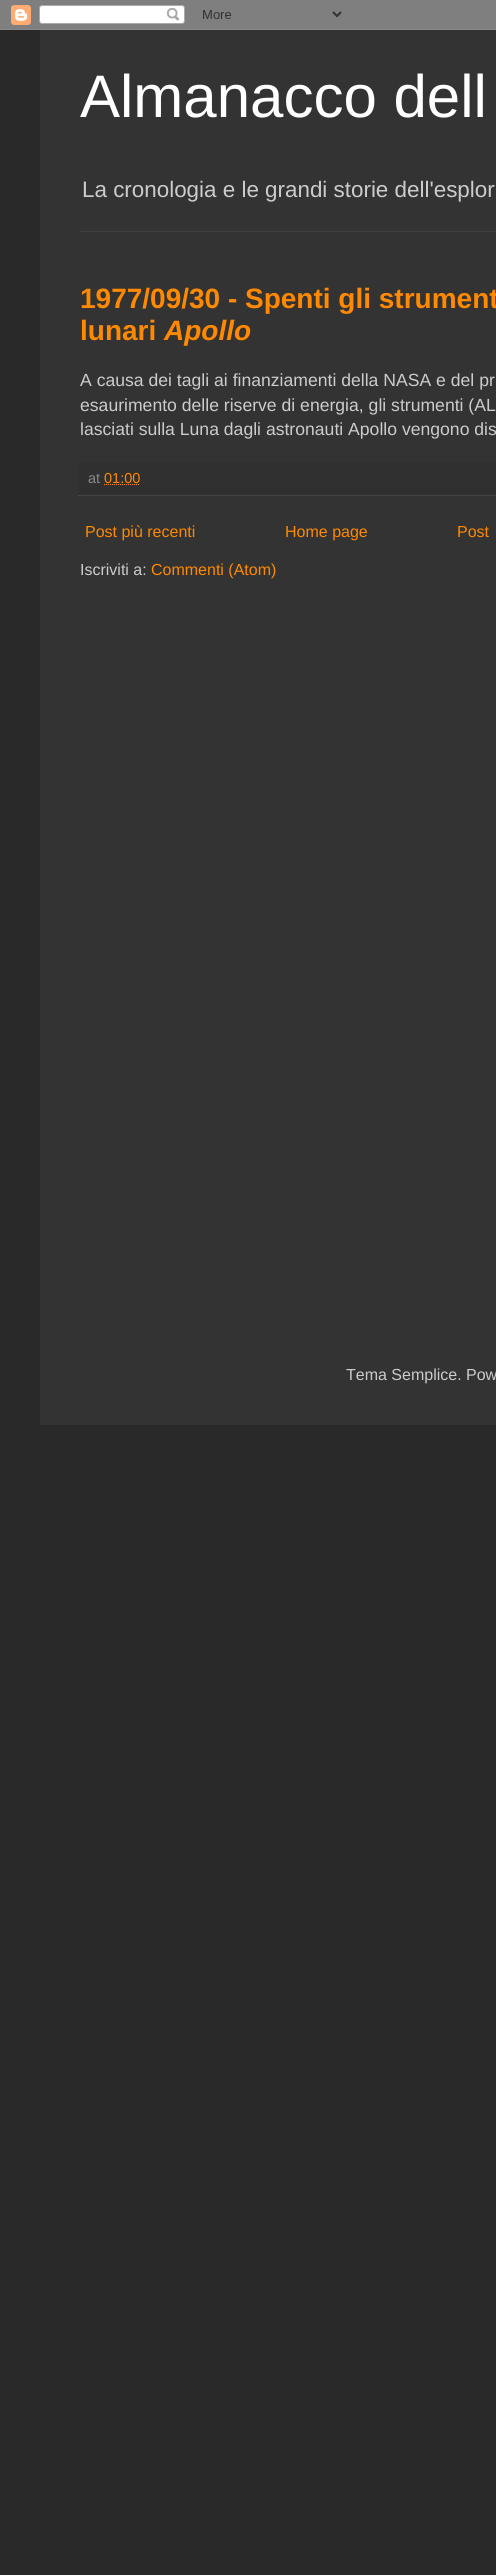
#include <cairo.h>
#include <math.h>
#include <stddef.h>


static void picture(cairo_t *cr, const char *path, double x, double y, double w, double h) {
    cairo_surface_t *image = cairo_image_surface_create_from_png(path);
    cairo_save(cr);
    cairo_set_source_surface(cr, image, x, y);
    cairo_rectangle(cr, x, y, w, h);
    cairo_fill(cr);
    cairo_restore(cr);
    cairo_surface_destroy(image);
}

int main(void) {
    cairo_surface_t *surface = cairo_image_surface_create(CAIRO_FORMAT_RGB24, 496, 2575);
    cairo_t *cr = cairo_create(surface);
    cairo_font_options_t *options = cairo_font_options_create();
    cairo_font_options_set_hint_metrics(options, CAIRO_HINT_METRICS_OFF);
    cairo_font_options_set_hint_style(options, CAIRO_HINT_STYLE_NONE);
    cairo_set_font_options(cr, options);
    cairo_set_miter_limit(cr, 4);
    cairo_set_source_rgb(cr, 0.161, 0.161, 0.161);
    cairo_paint(cr);
    picture(cr, "img1.png", 0, 0, 496, 30);
    cairo_set_source_rgb(cr, 0.2, 0.2, 0.2);
    cairo_rectangle(cr, 40, 30, 456, 1395);
    cairo_fill(cr);
    cairo_select_font_face(cr, "Liberation Sans", CAIRO_FONT_SLANT_NORMAL, CAIRO_FONT_WEIGHT_NORMAL);
    cairo_set_font_size(cr, 60);
    cairo_set_source_rgb(cr, 1, 1, 1);
    cairo_move_to(cr, 80, 117);
    cairo_show_text(cr, "Almanacco dell");
    cairo_set_font_size(cr, 22.4);
    cairo_set_source_rgb(cr, 0.8, 0.8, 0.8);
    cairo_move_to(cr, 82, 197);
    cairo_show_text(cr, "La cronologia e le grandi storie dell'esplor");
    cairo_set_source_rgb(cr, 0.251, 0.251, 0.251);
    cairo_rectangle(cr, 80, 231, 416, 1);
    cairo_fill(cr);
    cairo_select_font_face(cr, "Liberation Sans", CAIRO_FONT_SLANT_NORMAL, CAIRO_FONT_WEIGHT_BOLD);
    cairo_set_font_size(cr, 28);
    cairo_set_source_rgb(cr, 1, 0.537, 0);
    cairo_move_to(cr, 80, 308);
    cairo_show_text(cr, "1977/09/30 - Spenti gli strument");
    cairo_move_to(cr, 80, 340);
    cairo_show_text(cr, "lunari");
    cairo_select_font_face(cr, "Liberation Sans", CAIRO_FONT_SLANT_ITALIC, CAIRO_FONT_WEIGHT_BOLD);
    cairo_move_to(cr, 164, 340);
    cairo_show_text(cr, "Apollo");
    cairo_select_font_face(cr, "Liberation Sans", CAIRO_FONT_SLANT_NORMAL, CAIRO_FONT_WEIGHT_NORMAL);
    cairo_set_font_size(cr, 17.6);
    cairo_set_source_rgb(cr, 0.8, 0.8, 0.8);
    cairo_move_to(cr, 80, 386);
    cairo_show_text(cr, "A causa dei tagli ai finanziamenti della NASA e del pr");
    cairo_move_to(cr, 80, 411);
    cairo_show_text(cr, "esaurimento delle riserve di energia, gli strumenti (AL");
    cairo_move_to(cr, 80, 435);
    cairo_show_text(cr, "lasciati sulla Luna dagli astronauti Apollo vengono dis");
    cairo_set_source_rgb(cr, 0.188, 0.188, 0.188);
    cairo_rectangle(cr, 78, 462, 418, 33);
    cairo_fill(cr);
    cairo_set_source_rgb(cr, 0.267, 0.267, 0.267);
    cairo_rectangle(cr, 78, 495, 418, 1);
    cairo_fill(cr);
    cairo_set_font_size(cr, 14.5);
    cairo_set_source_rgb(cr, 0.533, 0.533, 0.533);
    cairo_move_to(cr, 88, 483);
    cairo_show_text(cr, "at");
    cairo_set_source_rgb(cr, 1, 0.537, 0);
    cairo_move_to(cr, 104, 483);
    cairo_show_text(cr, "01:00");
    cairo_new_path(cr);
    cairo_move_to(cr, 104, 484.5);
    cairo_line_to(cr, 140, 484.5);
    cairo_set_line_width(cr, 1);
    cairo_set_dash(cr, (double[]){1, 1}, 2, 0);
    cairo_stroke(cr);
    cairo_set_font_size(cr, 16);
    cairo_move_to(cr, 85, 537);
    cairo_show_text(cr, "Post più recenti");
    cairo_move_to(cr, 285, 537);
    cairo_show_text(cr, "Home page");
    cairo_move_to(cr, 457, 537);
    cairo_show_text(cr, "Post");
    cairo_set_source_rgb(cr, 0.8, 0.8, 0.8);
    cairo_move_to(cr, 80, 575);
    cairo_show_text(cr, "Iscriviti a:");
    cairo_set_source_rgb(cr, 1, 0.537, 0);
    cairo_move_to(cr, 151, 575);
    cairo_show_text(cr, "Commenti (Atom)");
    cairo_set_source_rgb(cr, 0.8, 0.8, 0.8);
    cairo_move_to(cr, 346, 1380);
    cairo_show_text(cr, "Tema Semplice. Pow");
    cairo_surface_write_to_png(surface, "page.png");
    cairo_font_options_destroy(options);
    cairo_destroy(cr);
    cairo_surface_destroy(surface);
    return 0;
}
